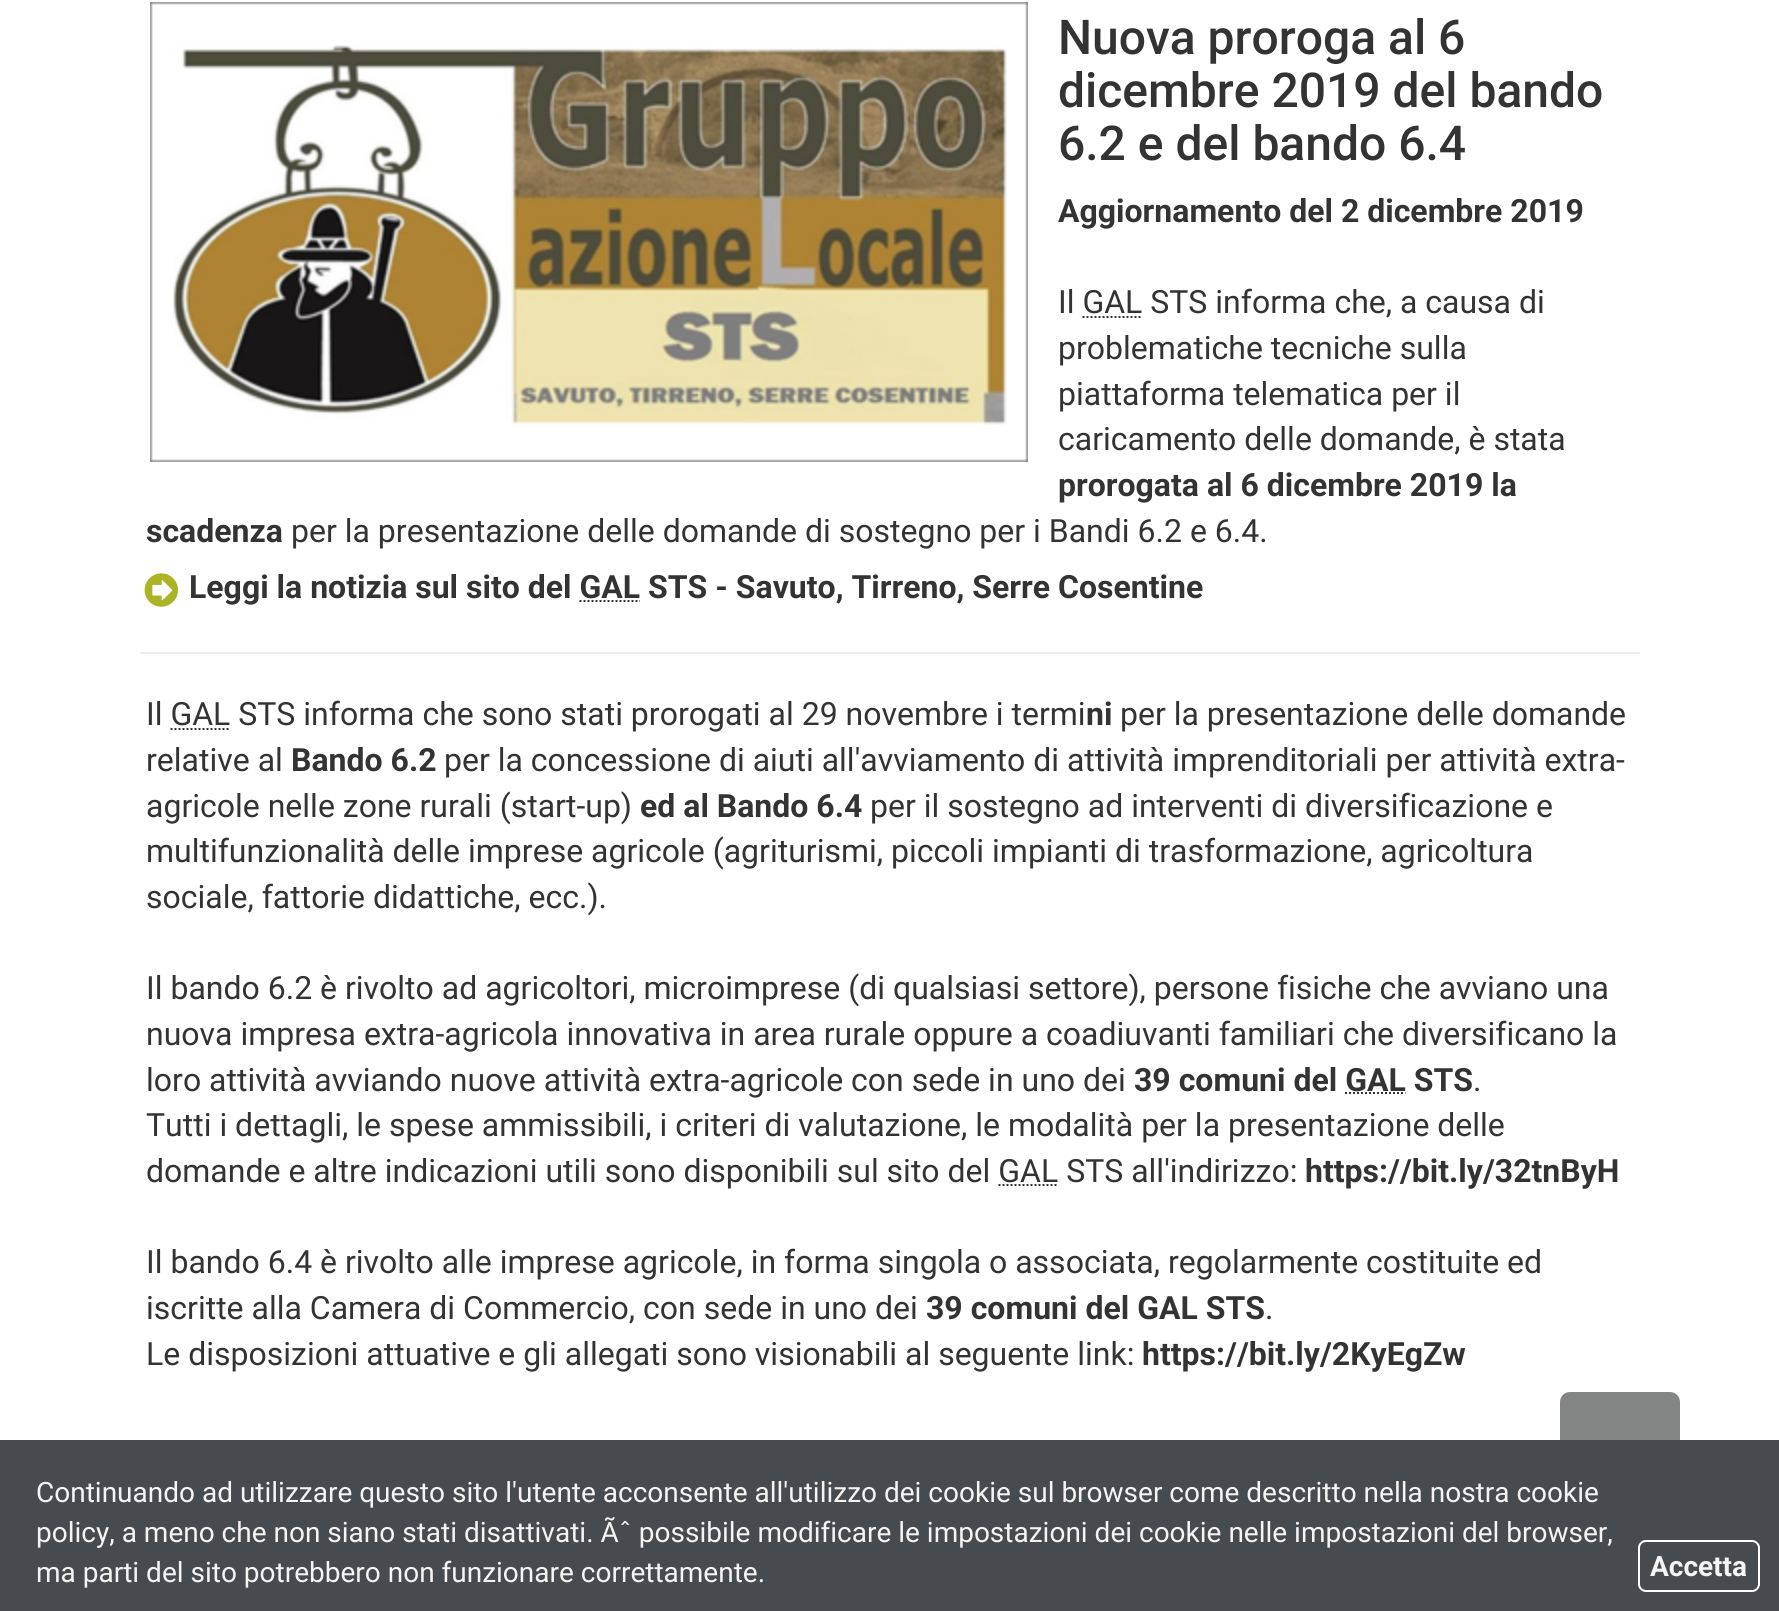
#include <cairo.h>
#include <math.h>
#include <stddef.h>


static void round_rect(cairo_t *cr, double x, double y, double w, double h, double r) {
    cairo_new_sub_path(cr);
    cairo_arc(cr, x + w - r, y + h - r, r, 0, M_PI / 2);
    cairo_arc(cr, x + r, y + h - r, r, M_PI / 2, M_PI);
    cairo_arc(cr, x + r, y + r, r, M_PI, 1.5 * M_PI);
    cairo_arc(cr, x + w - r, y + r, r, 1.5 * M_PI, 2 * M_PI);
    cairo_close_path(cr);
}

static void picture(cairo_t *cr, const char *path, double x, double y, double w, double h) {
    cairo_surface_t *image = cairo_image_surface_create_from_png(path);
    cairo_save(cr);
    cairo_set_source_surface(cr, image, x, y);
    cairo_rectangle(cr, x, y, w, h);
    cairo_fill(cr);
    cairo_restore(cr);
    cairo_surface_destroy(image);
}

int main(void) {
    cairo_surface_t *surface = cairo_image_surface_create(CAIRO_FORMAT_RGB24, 1779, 1611);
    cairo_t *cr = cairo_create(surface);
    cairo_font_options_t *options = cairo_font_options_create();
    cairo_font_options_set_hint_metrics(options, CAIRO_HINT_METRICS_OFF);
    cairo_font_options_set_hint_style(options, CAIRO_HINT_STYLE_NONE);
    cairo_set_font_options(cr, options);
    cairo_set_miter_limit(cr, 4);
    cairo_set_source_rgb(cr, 1, 1, 1);
    cairo_paint(cr);
    picture(cr, "img1.png", 150, 2, 878, 460);
    cairo_select_font_face(cr, "Roboto Medium", CAIRO_FONT_SLANT_NORMAL, CAIRO_FONT_WEIGHT_NORMAL);
    cairo_set_font_size(cr, 48);
    cairo_set_source_rgb(cr, 0.2, 0.2, 0.2);
    cairo_move_to(cr, 1058, 54);
    cairo_show_text(cr, "Nuova proroga al 6");
    cairo_move_to(cr, 1058, 107);
    cairo_show_text(cr, "dicembre 2019 del bando");
    cairo_move_to(cr, 1058, 160);
    cairo_show_text(cr, "6.2 e del bando 6.4");
    cairo_select_font_face(cr, "Roboto", CAIRO_FONT_SLANT_NORMAL, CAIRO_FONT_WEIGHT_BOLD);
    cairo_set_font_size(cr, 32);
    cairo_move_to(cr, 1058, 222);
    cairo_show_text(cr, "Aggiornamento del 2 dicembre 2019");
    cairo_select_font_face(cr, "Roboto", CAIRO_FONT_SLANT_NORMAL, CAIRO_FONT_WEIGHT_NORMAL);
    cairo_move_to(cr, 1058, 313);
    cairo_show_text(cr, "Il GAL STS informa che, a causa di");
    cairo_new_path(cr);
    cairo_move_to(cr, 1082.5, 317);
    cairo_line_to(cr, 1142.5, 317);
    cairo_set_dash(cr, (double[]){2, 2}, 2, 0);
    cairo_stroke(cr);
    cairo_move_to(cr, 1058, 359);
    cairo_show_text(cr, "problematiche tecniche sulla");
    cairo_move_to(cr, 1058, 405);
    cairo_show_text(cr, "piattaforma telematica per il");
    cairo_move_to(cr, 1058, 450);
    cairo_show_text(cr, "caricamento delle domande, è stata");
    cairo_select_font_face(cr, "Roboto", CAIRO_FONT_SLANT_NORMAL, CAIRO_FONT_WEIGHT_BOLD);
    cairo_move_to(cr, 1058, 496);
    cairo_show_text(cr, "prorogata al 6 dicembre 2019 la");
    cairo_move_to(cr, 146, 542);
    cairo_show_text(cr, "scadenza");
    cairo_select_font_face(cr, "Roboto", CAIRO_FONT_SLANT_NORMAL, CAIRO_FONT_WEIGHT_NORMAL);
    cairo_move_to(cr, 291, 542);
    cairo_show_text(cr, "per la presentazione delle domande di sostegno per i Bandi 6.2 e 6.4.");
    picture(cr, "img2.png", 144, 573, 34, 34);
    cairo_select_font_face(cr, "Roboto", CAIRO_FONT_SLANT_NORMAL, CAIRO_FONT_WEIGHT_BOLD);
    cairo_move_to(cr, 189, 598);
    cairo_show_text(cr, "Leggi la notizia sul sito del GAL STS - Savuto, Tirreno, Serre Cosentine");
    cairo_new_path(cr);
    cairo_move_to(cr, 579.5, 601);
    cairo_line_to(cr, 640, 601);
    cairo_stroke(cr);
    cairo_set_source_rgb(cr, 0.933, 0.933, 0.933);
    cairo_rectangle(cr, 140, 652, 1500, 2);
    cairo_fill(cr);
    cairo_select_font_face(cr, "Roboto", CAIRO_FONT_SLANT_NORMAL, CAIRO_FONT_WEIGHT_NORMAL);
    cairo_set_source_rgb(cr, 0.2, 0.2, 0.2);
    cairo_move_to(cr, 146, 725);
    cairo_show_text(cr, "Il GAL STS informa che sono stati prorogati al 29 novembre i termi");
    cairo_select_font_face(cr, "Roboto", CAIRO_FONT_SLANT_NORMAL, CAIRO_FONT_WEIGHT_BOLD);
    cairo_move_to(cr, 1086, 725);
    cairo_show_text(cr, "ni");
    cairo_select_font_face(cr, "Roboto", CAIRO_FONT_SLANT_NORMAL, CAIRO_FONT_WEIGHT_NORMAL);
    cairo_move_to(cr, 1120, 725);
    cairo_show_text(cr, "per la presentazione delle domande");
    cairo_new_path(cr);
    cairo_move_to(cr, 170.5, 729);
    cairo_line_to(cr, 230.5, 729);
    cairo_stroke(cr);
    cairo_move_to(cr, 146, 771);
    cairo_show_text(cr, "relative al");
    cairo_select_font_face(cr, "Roboto", CAIRO_FONT_SLANT_NORMAL, CAIRO_FONT_WEIGHT_BOLD);
    cairo_move_to(cr, 291, 771);
    cairo_show_text(cr, "Bando 6.2");
    cairo_select_font_face(cr, "Roboto", CAIRO_FONT_SLANT_NORMAL, CAIRO_FONT_WEIGHT_NORMAL);
    cairo_move_to(cr, 444, 771);
    cairo_show_text(cr, "per la concessione di aiuti all'avviamento di attività imprenditoriali per attività extra-");
    cairo_move_to(cr, 146, 817);
    cairo_show_text(cr, "agricole nelle zone rurali (start-up)");
    cairo_select_font_face(cr, "Roboto", CAIRO_FONT_SLANT_NORMAL, CAIRO_FONT_WEIGHT_BOLD);
    cairo_move_to(cr, 640, 817);
    cairo_show_text(cr, "ed al Bando 6.4");
    cairo_select_font_face(cr, "Roboto", CAIRO_FONT_SLANT_NORMAL, CAIRO_FONT_WEIGHT_NORMAL);
    cairo_move_to(cr, 870, 817);
    cairo_show_text(cr, "per il sostegno ad interventi di diversificazione e");
    cairo_move_to(cr, 146, 862);
    cairo_show_text(cr, "multifunzionalità delle imprese agricole (agriturismi, piccoli impianti di trasformazione, agricoltura");
    cairo_move_to(cr, 146, 908);
    cairo_show_text(cr, "sociale, fattorie didattiche, ecc.).");
    cairo_move_to(cr, 146, 999);
    cairo_show_text(cr, "Il bando 6.2 è rivolto ad agricoltori, microimprese (di qualsiasi settore), persone fisiche che avviano una");
    cairo_move_to(cr, 146, 1045);
    cairo_show_text(cr, "nuova impresa extra-agricola innovativa in area rurale oppure a coadiuvanti familiari che diversificano la");
    cairo_move_to(cr, 146, 1091);
    cairo_show_text(cr, "loro attività avviando nuove attività extra-agricole con sede in uno dei");
    cairo_select_font_face(cr, "Roboto", CAIRO_FONT_SLANT_NORMAL, CAIRO_FONT_WEIGHT_BOLD);
    cairo_move_to(cr, 1134, 1091);
    cairo_show_text(cr, "39 comuni del GAL STS");
    cairo_new_path(cr);
    cairo_move_to(cr, 1345, 1093);
    cairo_line_to(cr, 1405.5, 1093);
    cairo_stroke(cr);
    cairo_select_font_face(cr, "Roboto", CAIRO_FONT_SLANT_NORMAL, CAIRO_FONT_WEIGHT_NORMAL);
    cairo_move_to(cr, 1473, 1091);
    cairo_show_text(cr, ".");
    cairo_move_to(cr, 146, 1136);
    cairo_show_text(cr, "Tutti i dettagli, le spese ammissibili, i criteri di valutazione, le modalità per la presentazione delle");
    cairo_move_to(cr, 146, 1182);
    cairo_show_text(cr, "domande e altre indicazioni utili sono disponibili sul sito del GAL STS all'indirizzo:");
    cairo_select_font_face(cr, "Roboto", CAIRO_FONT_SLANT_NORMAL, CAIRO_FONT_WEIGHT_BOLD);
    cairo_move_to(cr, 1305, 1182);
    cairo_show_text(cr, "https://bit.ly/32tnByH");
    cairo_new_path(cr);
    cairo_move_to(cr, 998.5, 1185);
    cairo_line_to(cr, 1058, 1185);
    cairo_stroke(cr);
    cairo_select_font_face(cr, "Roboto", CAIRO_FONT_SLANT_NORMAL, CAIRO_FONT_WEIGHT_NORMAL);
    cairo_move_to(cr, 146, 1273);
    cairo_show_text(cr, "Il bando 6.4 è rivolto alle imprese agricole, in forma singola o associata, regolarmente costituite ed");
    cairo_move_to(cr, 146, 1319);
    cairo_show_text(cr, "iscritte alla Camera di Commercio, con sede in uno dei");
    cairo_select_font_face(cr, "Roboto", CAIRO_FONT_SLANT_NORMAL, CAIRO_FONT_WEIGHT_BOLD);
    cairo_move_to(cr, 926, 1319);
    cairo_show_text(cr, "39 comuni del GAL STS");
    cairo_select_font_face(cr, "Roboto", CAIRO_FONT_SLANT_NORMAL, CAIRO_FONT_WEIGHT_NORMAL);
    cairo_move_to(cr, 1265, 1319);
    cairo_show_text(cr, ".");
    cairo_move_to(cr, 146, 1365);
    cairo_show_text(cr, "Le disposizioni attuative e gli allegati sono visionabili al seguente link:");
    cairo_select_font_face(cr, "Roboto", CAIRO_FONT_SLANT_NORMAL, CAIRO_FONT_WEIGHT_BOLD);
    cairo_move_to(cr, 1142, 1365);
    cairo_show_text(cr, "https://bit.ly/2KyEgZw");
    cairo_set_source_rgb(cr, 0.518, 0.522, 0.522);
    round_rect(cr, 1560, 1392, 120, 120, 10);
    cairo_fill(cr);
    cairo_set_source_rgb(cr, 0.275, 0.294, 0.31);
    cairo_rectangle(cr, 0, 1440, 1779, 171);
    cairo_fill(cr);
    cairo_select_font_face(cr, "Roboto", CAIRO_FONT_SLANT_NORMAL, CAIRO_FONT_WEIGHT_NORMAL);
    cairo_set_font_size(cr, 28);
    cairo_set_source_rgb(cr, 0.961, 0.953, 0.953);
    cairo_move_to(cr, 36, 1502);
    cairo_show_text(cr, "Continuando ad utilizzare questo sito l'utente acconsente all'utilizzo dei cookie sul browser come descritto nella nostra cookie");
    cairo_move_to(cr, 36, 1542);
    cairo_show_text(cr, "policy, a meno che non siano stati disattivati. Ãˆ possibile modificare le impostazioni dei cookie nelle impostazioni del browser,");
    cairo_move_to(cr, 36, 1582);
    cairo_show_text(cr, "ma parti del sito potrebbero non funzionare correttamente.");
    round_rect(cr, 1639, 1541, 120, 50, 7);
    cairo_set_source_rgb(cr, 1, 1, 1);
    cairo_set_dash(cr, NULL, 0, 0);
    cairo_stroke(cr);
    cairo_select_font_face(cr, "Roboto", CAIRO_FONT_SLANT_NORMAL, CAIRO_FONT_WEIGHT_BOLD);
    cairo_set_source_rgb(cr, 0.961, 0.953, 0.953);
    cairo_move_to(cr, 1650, 1576);
    cairo_show_text(cr, "Accetta");
    cairo_surface_write_to_png(surface, "page.png");
    cairo_font_options_destroy(options);
    cairo_destroy(cr);
    cairo_surface_destroy(surface);
    return 0;
}
